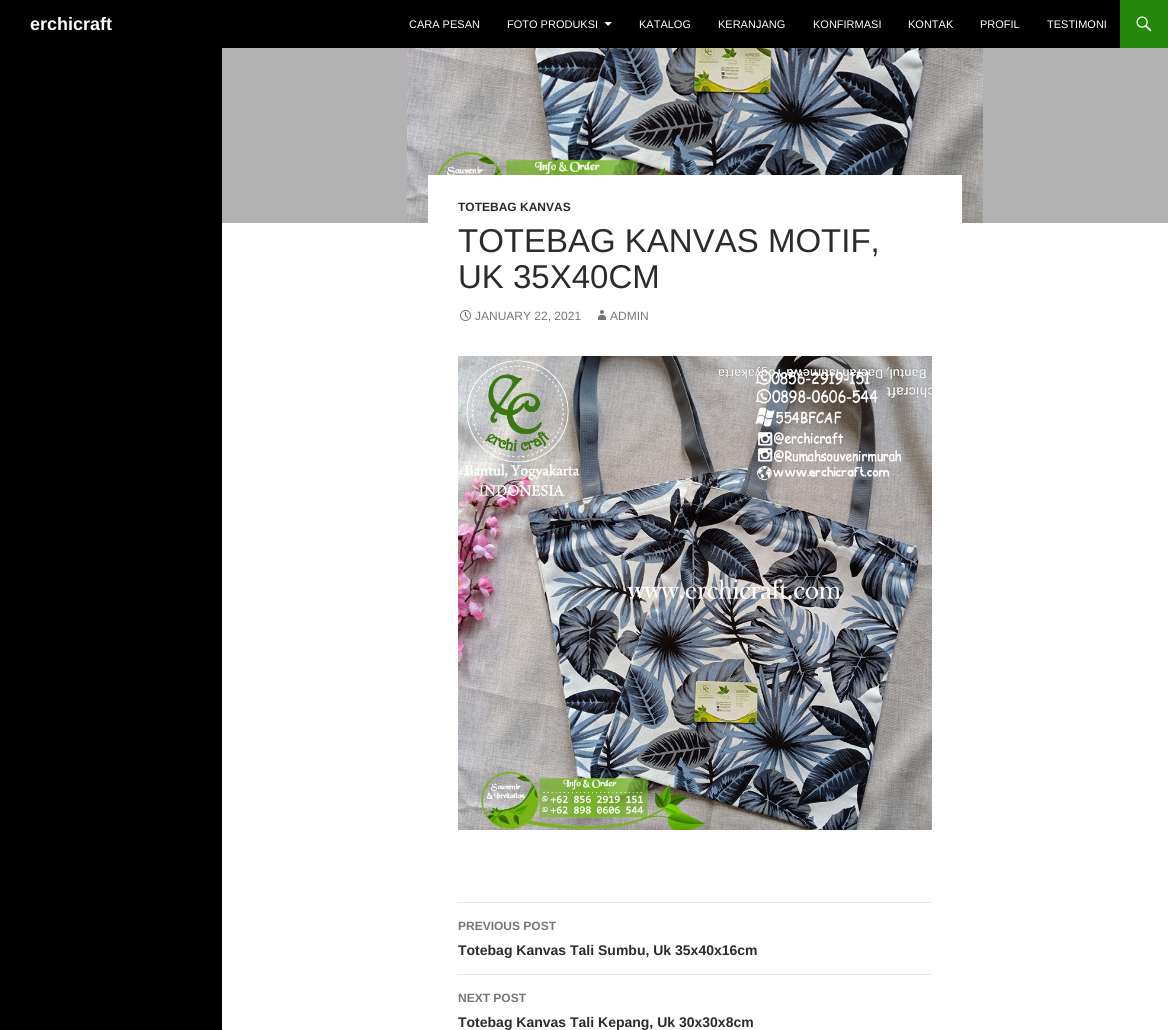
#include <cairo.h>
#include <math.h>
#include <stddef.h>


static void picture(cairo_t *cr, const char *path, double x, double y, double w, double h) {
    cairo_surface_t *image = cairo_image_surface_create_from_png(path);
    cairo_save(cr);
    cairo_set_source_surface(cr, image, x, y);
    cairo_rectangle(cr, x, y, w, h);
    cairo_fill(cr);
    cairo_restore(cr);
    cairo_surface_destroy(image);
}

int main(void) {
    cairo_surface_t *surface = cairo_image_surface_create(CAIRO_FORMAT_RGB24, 1168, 1030);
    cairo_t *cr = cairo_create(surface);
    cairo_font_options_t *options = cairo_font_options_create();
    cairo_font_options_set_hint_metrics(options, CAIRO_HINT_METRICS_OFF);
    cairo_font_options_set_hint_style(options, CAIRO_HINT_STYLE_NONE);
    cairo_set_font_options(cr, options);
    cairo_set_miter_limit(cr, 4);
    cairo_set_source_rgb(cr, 1, 1, 1);
    cairo_paint(cr);
    cairo_set_source_rgb(cr, 0, 0, 0);
    cairo_rectangle(cr, 0, 0, 1120, 48);
    cairo_fill(cr);
    cairo_select_font_face(cr, "Liberation Sans", CAIRO_FONT_SLANT_NORMAL, CAIRO_FONT_WEIGHT_BOLD);
    cairo_set_font_size(cr, 18);
    cairo_set_source_rgb(cr, 1, 1, 1);
    cairo_move_to(cr, 30, 30);
    cairo_show_text(cr, "erchicraft");
    cairo_select_font_face(cr, "Liberation Sans", CAIRO_FONT_SLANT_NORMAL, CAIRO_FONT_WEIGHT_NORMAL);
    cairo_set_font_size(cr, 11);
    cairo_move_to(cr, 409, 28);
    cairo_show_text(cr, "CARA PESAN");
    cairo_move_to(cr, 507, 28);
    cairo_show_text(cr, "FOTO PRODUKSI");
    cairo_new_path(cr);
    cairo_move_to(cr, 604.5, 22);
    cairo_line_to(cr, 608, 26);
    cairo_line_to(cr, 612, 22);
    cairo_close_path(cr);
    cairo_fill(cr);
    cairo_move_to(cr, 639, 28);
    cairo_show_text(cr, "KATALOG");
    cairo_move_to(cr, 718, 28);
    cairo_show_text(cr, "KERANJANG");
    cairo_move_to(cr, 813, 28);
    cairo_show_text(cr, "KONFIRMASI");
    cairo_move_to(cr, 908, 28);
    cairo_show_text(cr, "KONTAK");
    cairo_move_to(cr, 980, 28);
    cairo_show_text(cr, "PROFIL");
    cairo_move_to(cr, 1047, 28);
    cairo_show_text(cr, "TESTIMONI");
    cairo_set_source_rgb(cr, 0.141, 0.537, 0.051);
    cairo_rectangle(cr, 1120, 0, 48, 48);
    cairo_fill(cr);
    picture(cr, "img1.png", 1136, 16, 16, 16);
    cairo_set_source_rgb(cr, 0, 0, 0);
    cairo_rectangle(cr, 0, 48, 222, 982);
    cairo_fill(cr);
    cairo_set_source_rgb(cr, 0.698, 0.698, 0.698);
    cairo_rectangle(cr, 222, 48, 946, 175);
    cairo_fill(cr);
    picture(cr, "img2.png", 407, 48, 576, 175);
    cairo_set_source_rgb(cr, 1, 1, 1);
    cairo_rectangle(cr, 428, 175, 534, 48);
    cairo_fill(cr);
    cairo_select_font_face(cr, "Liberation Sans", CAIRO_FONT_SLANT_NORMAL, CAIRO_FONT_WEIGHT_BOLD);
    cairo_set_font_size(cr, 12);
    cairo_set_source_rgb(cr, 0.169, 0.169, 0.169);
    cairo_move_to(cr, 458, 211);
    cairo_show_text(cr, "TOTEBAG KANVAS");
    cairo_select_font_face(cr, "Liberation Sans", CAIRO_FONT_SLANT_NORMAL, CAIRO_FONT_WEIGHT_NORMAL);
    cairo_set_font_size(cr, 33);
    cairo_move_to(cr, 458, 252);
    cairo_show_text(cr, "TOTEBAG KANVAS MOTIF,");
    cairo_move_to(cr, 458, 288);
    cairo_show_text(cr, "UK 35X40CM");
    picture(cr, "img3.png", 460, 310, 11, 11);
    cairo_set_font_size(cr, 12);
    cairo_set_source_rgb(cr, 0.463, 0.463, 0.463);
    cairo_move_to(cr, 475, 320);
    cairo_show_text(cr, "JANUARY 22, 2021");
    picture(cr, "img4.png", 598, 310, 8, 10);
    cairo_move_to(cr, 610, 320);
    cairo_show_text(cr, "ADMIN");
    picture(cr, "img5.png", 458, 356, 474, 474);
    cairo_set_source_rgb(cr, 0.902, 0.902, 0.902);
    cairo_rectangle(cr, 458, 902, 474, 1);
    cairo_fill(cr);
    cairo_rectangle(cr, 458, 974, 474, 1);
    cairo_fill(cr);
    cairo_select_font_face(cr, "Liberation Sans", CAIRO_FONT_SLANT_NORMAL, CAIRO_FONT_WEIGHT_BOLD);
    cairo_set_source_rgb(cr, 0.463, 0.463, 0.463);
    cairo_move_to(cr, 458, 930);
    cairo_show_text(cr, "PREVIOUS POST");
    cairo_set_font_size(cr, 14);
    cairo_set_source_rgb(cr, 0.169, 0.169, 0.169);
    cairo_move_to(cr, 458, 955);
    cairo_show_text(cr, "Totebag Kanvas Tali Sumbu, Uk 35x40x16cm");
    cairo_set_font_size(cr, 12);
    cairo_set_source_rgb(cr, 0.463, 0.463, 0.463);
    cairo_move_to(cr, 458, 1002);
    cairo_show_text(cr, "NEXT POST");
    cairo_set_font_size(cr, 14);
    cairo_set_source_rgb(cr, 0.169, 0.169, 0.169);
    cairo_move_to(cr, 458, 1027);
    cairo_show_text(cr, "Totebag Kanvas Tali Kepang, Uk 30x30x8cm");
    cairo_surface_write_to_png(surface, "page.png");
    cairo_font_options_destroy(options);
    cairo_destroy(cr);
    cairo_surface_destroy(surface);
    return 0;
}
